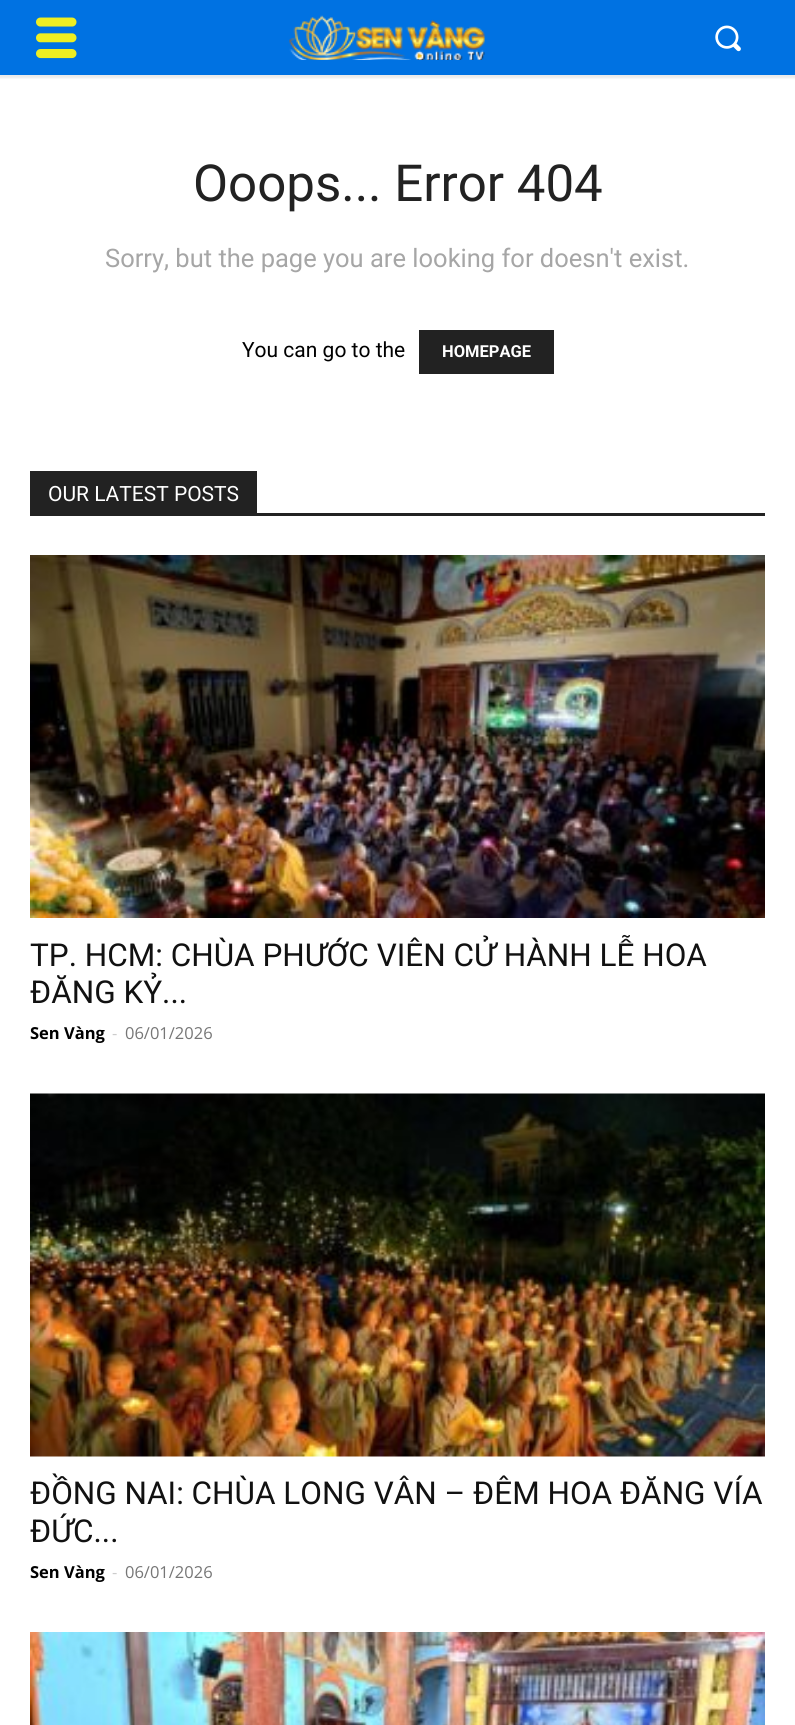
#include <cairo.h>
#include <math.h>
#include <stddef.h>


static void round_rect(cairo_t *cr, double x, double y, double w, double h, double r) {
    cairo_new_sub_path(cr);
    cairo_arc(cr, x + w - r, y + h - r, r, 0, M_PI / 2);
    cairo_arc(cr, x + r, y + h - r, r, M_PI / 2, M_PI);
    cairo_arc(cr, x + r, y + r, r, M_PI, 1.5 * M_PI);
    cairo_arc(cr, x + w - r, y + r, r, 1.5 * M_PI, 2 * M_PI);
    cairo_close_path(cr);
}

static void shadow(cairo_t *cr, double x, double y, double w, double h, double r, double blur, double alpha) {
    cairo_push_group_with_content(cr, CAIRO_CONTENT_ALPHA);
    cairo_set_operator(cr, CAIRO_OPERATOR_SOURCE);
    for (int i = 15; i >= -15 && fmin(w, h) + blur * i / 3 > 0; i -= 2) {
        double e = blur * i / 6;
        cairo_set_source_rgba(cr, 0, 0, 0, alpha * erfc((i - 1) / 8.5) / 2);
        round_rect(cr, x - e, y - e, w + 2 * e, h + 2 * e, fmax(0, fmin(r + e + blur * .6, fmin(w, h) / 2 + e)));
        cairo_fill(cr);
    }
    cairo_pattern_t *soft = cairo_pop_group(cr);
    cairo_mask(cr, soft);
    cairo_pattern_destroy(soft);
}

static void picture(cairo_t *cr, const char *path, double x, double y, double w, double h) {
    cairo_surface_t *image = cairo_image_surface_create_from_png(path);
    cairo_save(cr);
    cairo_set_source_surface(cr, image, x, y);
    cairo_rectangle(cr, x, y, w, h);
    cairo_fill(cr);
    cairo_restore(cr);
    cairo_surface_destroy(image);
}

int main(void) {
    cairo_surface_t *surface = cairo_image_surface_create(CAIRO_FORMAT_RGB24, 795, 1725);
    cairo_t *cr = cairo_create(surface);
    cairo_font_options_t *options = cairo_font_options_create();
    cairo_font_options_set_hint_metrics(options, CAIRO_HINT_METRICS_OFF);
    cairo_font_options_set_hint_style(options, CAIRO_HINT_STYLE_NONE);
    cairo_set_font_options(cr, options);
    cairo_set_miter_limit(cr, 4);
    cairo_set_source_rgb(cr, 1, 1, 1);
    cairo_paint(cr);
    cairo_set_source_rgb(cr, 0, 0.447, 0.886);
    cairo_rectangle(cr, 0, 0, 795, 75);
    cairo_fill(cr);
    picture(cr, "img1.png", 36, 17, 41, 42);
    picture(cr, "img2.png", 289, 15, 196, 45);
    picture(cr, "img3.png", 715, 25, 26, 27);
    cairo_save(cr);
    cairo_rectangle(cr, 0, 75, 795, 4);
    cairo_clip(cr);
    cairo_set_source_rgb(cr, 0, 0, 0);
    shadow(cr, -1, 0, 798, 78, 0, 1, 0.08);
    cairo_restore(cr);
    cairo_select_font_face(cr, "Roboto", CAIRO_FONT_SLANT_NORMAL, CAIRO_FONT_WEIGHT_NORMAL);
    cairo_set_font_size(cr, 51);
    cairo_set_source_rgb(cr, 0.133, 0.133, 0.133);
    cairo_move_to(cr, 193, 201);
    cairo_show_text(cr, "Ooops... Error 404");
    cairo_set_font_size(cr, 25.5);
    cairo_set_source_rgb(cr, 0.651, 0.651, 0.651);
    cairo_move_to(cr, 105, 267);
    cairo_show_text(cr, "Sorry, but the page you are looking for doesn't exist.");
    cairo_set_font_size(cr, 21);
    cairo_set_source_rgb(cr, 0, 0, 0);
    cairo_move_to(cr, 242, 357);
    cairo_show_text(cr, "You can go to the");
    cairo_set_source_rgb(cr, 0.133, 0.133, 0.133);
    cairo_rectangle(cr, 419, 330, 135, 44);
    cairo_fill(cr);
    cairo_select_font_face(cr, "Roboto", CAIRO_FONT_SLANT_NORMAL, CAIRO_FONT_WEIGHT_BOLD);
    cairo_set_font_size(cr, 16.5);
    cairo_set_source_rgb(cr, 1, 1, 1);
    cairo_move_to(cr, 442, 357);
    cairo_show_text(cr, "HOMEPAGE");
    cairo_set_source_rgb(cr, 0.133, 0.133, 0.133);
    cairo_rectangle(cr, 30, 513, 735, 3);
    cairo_fill(cr);
    cairo_rectangle(cr, 30, 471, 227, 42);
    cairo_fill(cr);
    cairo_select_font_face(cr, "Roboto", CAIRO_FONT_SLANT_NORMAL, CAIRO_FONT_WEIGHT_NORMAL);
    cairo_set_font_size(cr, 21);
    cairo_set_source_rgb(cr, 1, 1, 1);
    cairo_move_to(cr, 48, 501);
    cairo_show_text(cr, "OUR LATEST POSTS");
    picture(cr, "img4.png", 30, 555, 735, 363);
    cairo_set_font_size(cr, 31.5);
    cairo_set_source_rgb(cr, 0.067, 0.067, 0.067);
    cairo_move_to(cr, 30, 966);
    cairo_show_text(cr, "TP. HCM: CHÙA PHƯỚC VIÊN CỬ HÀNH LỄ HOA");
    cairo_move_to(cr, 30, 1003);
    cairo_show_text(cr, "ĐĂNG KỶ...");
    cairo_select_font_face(cr, "Open Sans", CAIRO_FONT_SLANT_NORMAL, CAIRO_FONT_WEIGHT_BOLD);
    cairo_set_font_size(cr, 16.5);
    cairo_set_source_rgb(cr, 0, 0, 0);
    cairo_move_to(cr, 30, 1039);
    cairo_show_text(cr, "Sen Vàng");
    cairo_select_font_face(cr, "Open Sans", CAIRO_FONT_SLANT_NORMAL, CAIRO_FONT_WEIGHT_NORMAL);
    cairo_set_source_rgb(cr, 0.8, 0.8, 0.8);
    cairo_move_to(cr, 112, 1039);
    cairo_show_text(cr, "-");
    cairo_set_source_rgb(cr, 0.463, 0.463, 0.463);
    cairo_move_to(cr, 125, 1039);
    cairo_show_text(cr, "06/01/2026");
    picture(cr, "img5.png", 30, 1093, 735, 364);
    cairo_select_font_face(cr, "Roboto", CAIRO_FONT_SLANT_NORMAL, CAIRO_FONT_WEIGHT_NORMAL);
    cairo_set_font_size(cr, 31.5);
    cairo_set_source_rgb(cr, 0.067, 0.067, 0.067);
    cairo_move_to(cr, 30, 1504);
    cairo_show_text(cr, "ĐỒNG NAI: CHÙA LONG VÂN – ĐÊM HOA ĐĂNG VÍA");
    cairo_move_to(cr, 30, 1542);
    cairo_show_text(cr, "ĐỨC...");
    cairo_select_font_face(cr, "Open Sans", CAIRO_FONT_SLANT_NORMAL, CAIRO_FONT_WEIGHT_BOLD);
    cairo_set_font_size(cr, 16.5);
    cairo_set_source_rgb(cr, 0, 0, 0);
    cairo_move_to(cr, 30, 1578);
    cairo_show_text(cr, "Sen Vàng");
    cairo_select_font_face(cr, "Open Sans", CAIRO_FONT_SLANT_NORMAL, CAIRO_FONT_WEIGHT_NORMAL);
    cairo_set_source_rgb(cr, 0.8, 0.8, 0.8);
    cairo_move_to(cr, 112, 1578);
    cairo_show_text(cr, "-");
    cairo_set_source_rgb(cr, 0.463, 0.463, 0.463);
    cairo_move_to(cr, 125, 1578);
    cairo_show_text(cr, "06/01/2026");
    picture(cr, "img6.png", 30, 1632, 735, 93);
    cairo_surface_write_to_png(surface, "page.png");
    cairo_font_options_destroy(options);
    cairo_destroy(cr);
    cairo_surface_destroy(surface);
    return 0;
}
